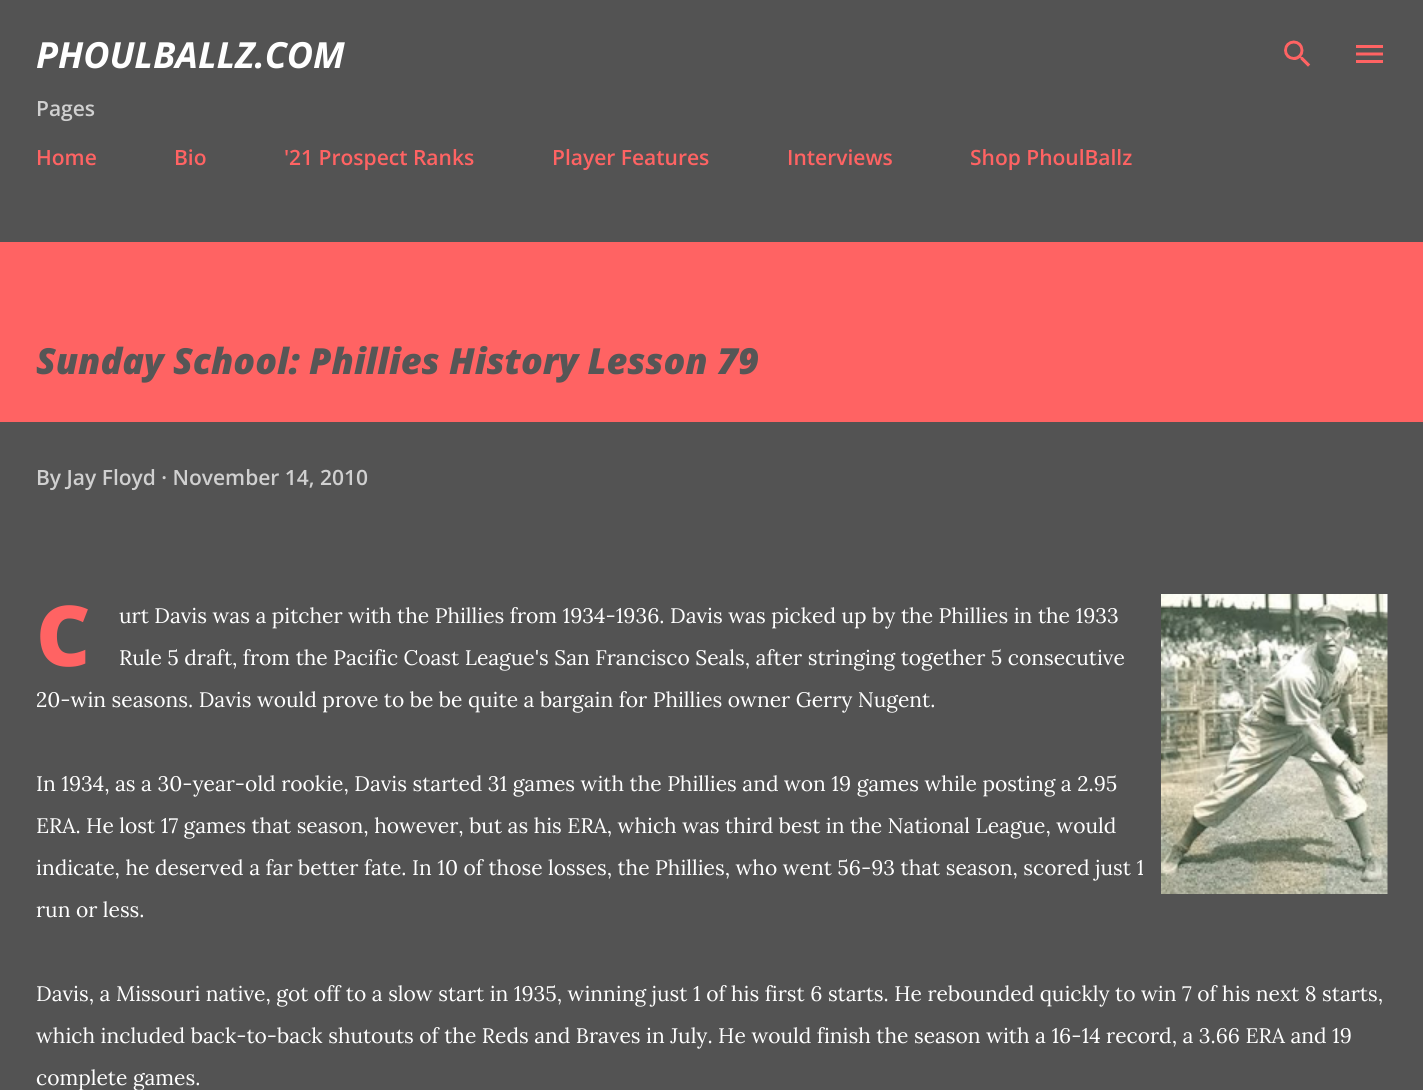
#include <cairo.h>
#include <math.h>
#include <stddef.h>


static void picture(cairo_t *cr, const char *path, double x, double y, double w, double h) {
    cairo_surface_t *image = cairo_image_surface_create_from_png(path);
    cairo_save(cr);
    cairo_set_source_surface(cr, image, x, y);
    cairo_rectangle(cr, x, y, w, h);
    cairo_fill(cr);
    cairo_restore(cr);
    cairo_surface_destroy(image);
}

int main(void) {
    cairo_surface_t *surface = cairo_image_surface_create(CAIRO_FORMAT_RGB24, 1423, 1090);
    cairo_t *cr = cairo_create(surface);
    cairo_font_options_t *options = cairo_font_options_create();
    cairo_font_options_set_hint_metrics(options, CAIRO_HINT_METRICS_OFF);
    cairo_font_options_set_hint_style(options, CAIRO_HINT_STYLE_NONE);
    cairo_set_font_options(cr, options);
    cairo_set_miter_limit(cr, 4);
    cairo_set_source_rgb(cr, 0.325, 0.325, 0.325);
    cairo_paint(cr);
    cairo_select_font_face(cr, "Open Sans", CAIRO_FONT_SLANT_ITALIC, CAIRO_FONT_WEIGHT_BOLD);
    cairo_set_font_size(cr, 36);
    cairo_set_source_rgb(cr, 1, 1, 1);
    cairo_move_to(cr, 36, 68);
    cairo_show_text(cr, "PHOULBALLZ.COM");
    picture(cr, "img1.png", 1284, 40, 27, 27);
    picture(cr, "img2.png", 1356, 45, 27, 18);
    cairo_select_font_face(cr, "Open Sans SemiBold", CAIRO_FONT_SLANT_NORMAL, CAIRO_FONT_WEIGHT_NORMAL);
    cairo_set_font_size(cr, 21);
    cairo_set_source_rgb(cr, 0.816, 0.816, 0.816);
    cairo_move_to(cr, 36, 116);
    cairo_show_text(cr, "Pages");
    cairo_set_source_rgb(cr, 1, 0.388, 0.388);
    cairo_move_to(cr, 36, 165);
    cairo_show_text(cr, "Home");
    cairo_move_to(cr, 174, 165);
    cairo_show_text(cr, "Bio");
    cairo_move_to(cr, 284, 165);
    cairo_show_text(cr, "'21 Prospect Ranks");
    cairo_move_to(cr, 552, 165);
    cairo_show_text(cr, "Player Features");
    cairo_move_to(cr, 787, 165);
    cairo_show_text(cr, "Interviews");
    cairo_move_to(cr, 970, 165);
    cairo_show_text(cr, "Shop PhoulBallz");
    cairo_rectangle(cr, 0, 242, 1423, 180);
    cairo_fill(cr);
    cairo_select_font_face(cr, "Open Sans ExtraBold", CAIRO_FONT_SLANT_ITALIC, CAIRO_FONT_WEIGHT_NORMAL);
    cairo_set_font_size(cr, 36);
    cairo_set_source_rgb(cr, 0.337, 0.337, 0.337);
    cairo_move_to(cr, 36, 374);
    cairo_show_text(cr, "Sunday School: Phillies History Lesson 79");
    cairo_select_font_face(cr, "Open Sans SemiBold", CAIRO_FONT_SLANT_NORMAL, CAIRO_FONT_WEIGHT_NORMAL);
    cairo_set_font_size(cr, 21);
    cairo_set_source_rgb(cr, 0.816, 0.816, 0.816);
    cairo_move_to(cr, 36, 485);
    cairo_show_text(cr, "By Jay Floyd · November 14, 2010");
    cairo_select_font_face(cr, "Noto Sans Black", CAIRO_FONT_SLANT_NORMAL, CAIRO_FONT_WEIGHT_NORMAL);
    cairo_set_font_size(cr, 84);
    cairo_set_source_rgb(cr, 1, 0.388, 0.388);
    cairo_move_to(cr, 36, 666);
    cairo_show_text(cr, "C");
    cairo_select_font_face(cr, "Lora", CAIRO_FONT_SLANT_NORMAL, CAIRO_FONT_WEIGHT_NORMAL);
    cairo_set_font_size(cr, 21);
    cairo_set_source_rgb(cr, 1, 1, 1);
    cairo_move_to(cr, 119, 623);
    cairo_show_text(cr, "urt Davis was a pitcher with the Phillies from 1934-1936. Davis was picked up by the Phillies in the 1933");
    picture(cr, "img3.png", 1161, 594, 227, 300);
    cairo_move_to(cr, 119, 665);
    cairo_show_text(cr, "Rule 5 draft, from the Pacific Coast League's San Francisco Seals, after stringing together 5 consecutive");
    cairo_move_to(cr, 36, 707);
    cairo_show_text(cr, "20-win seasons. Davis would prove to be be quite a bargain for Phillies owner Gerry Nugent.");
    cairo_move_to(cr, 36, 791);
    cairo_show_text(cr, "In 1934, as a 30-year-old rookie, Davis started 31 games with the Phillies and won 19 games while posting a 2.95");
    cairo_move_to(cr, 36, 833);
    cairo_show_text(cr, "ERA. He lost 17 games that season, however, but as his ERA, which was third best in the National League, would");
    cairo_move_to(cr, 36, 875);
    cairo_show_text(cr, "indicate, he deserved a far better fate. In 10 of those losses, the Phillies, who went 56-93 that season, scored just 1");
    cairo_move_to(cr, 36, 917);
    cairo_show_text(cr, "run or less.");
    cairo_move_to(cr, 36, 1001);
    cairo_show_text(cr, "Davis, a Missouri native, got off to a slow start in 1935, winning just 1 of his first 6 starts. He rebounded quickly to win 7 of his next 8 starts,");
    cairo_move_to(cr, 36, 1043);
    cairo_show_text(cr, "which included back-to-back shutouts of the Reds and Braves in July. He would finish the season with a 16-14 record, a 3.66 ERA and 19");
    cairo_move_to(cr, 36, 1085);
    cairo_show_text(cr, "complete games.");
    cairo_surface_write_to_png(surface, "page.png");
    cairo_font_options_destroy(options);
    cairo_destroy(cr);
    cairo_surface_destroy(surface);
    return 0;
}
